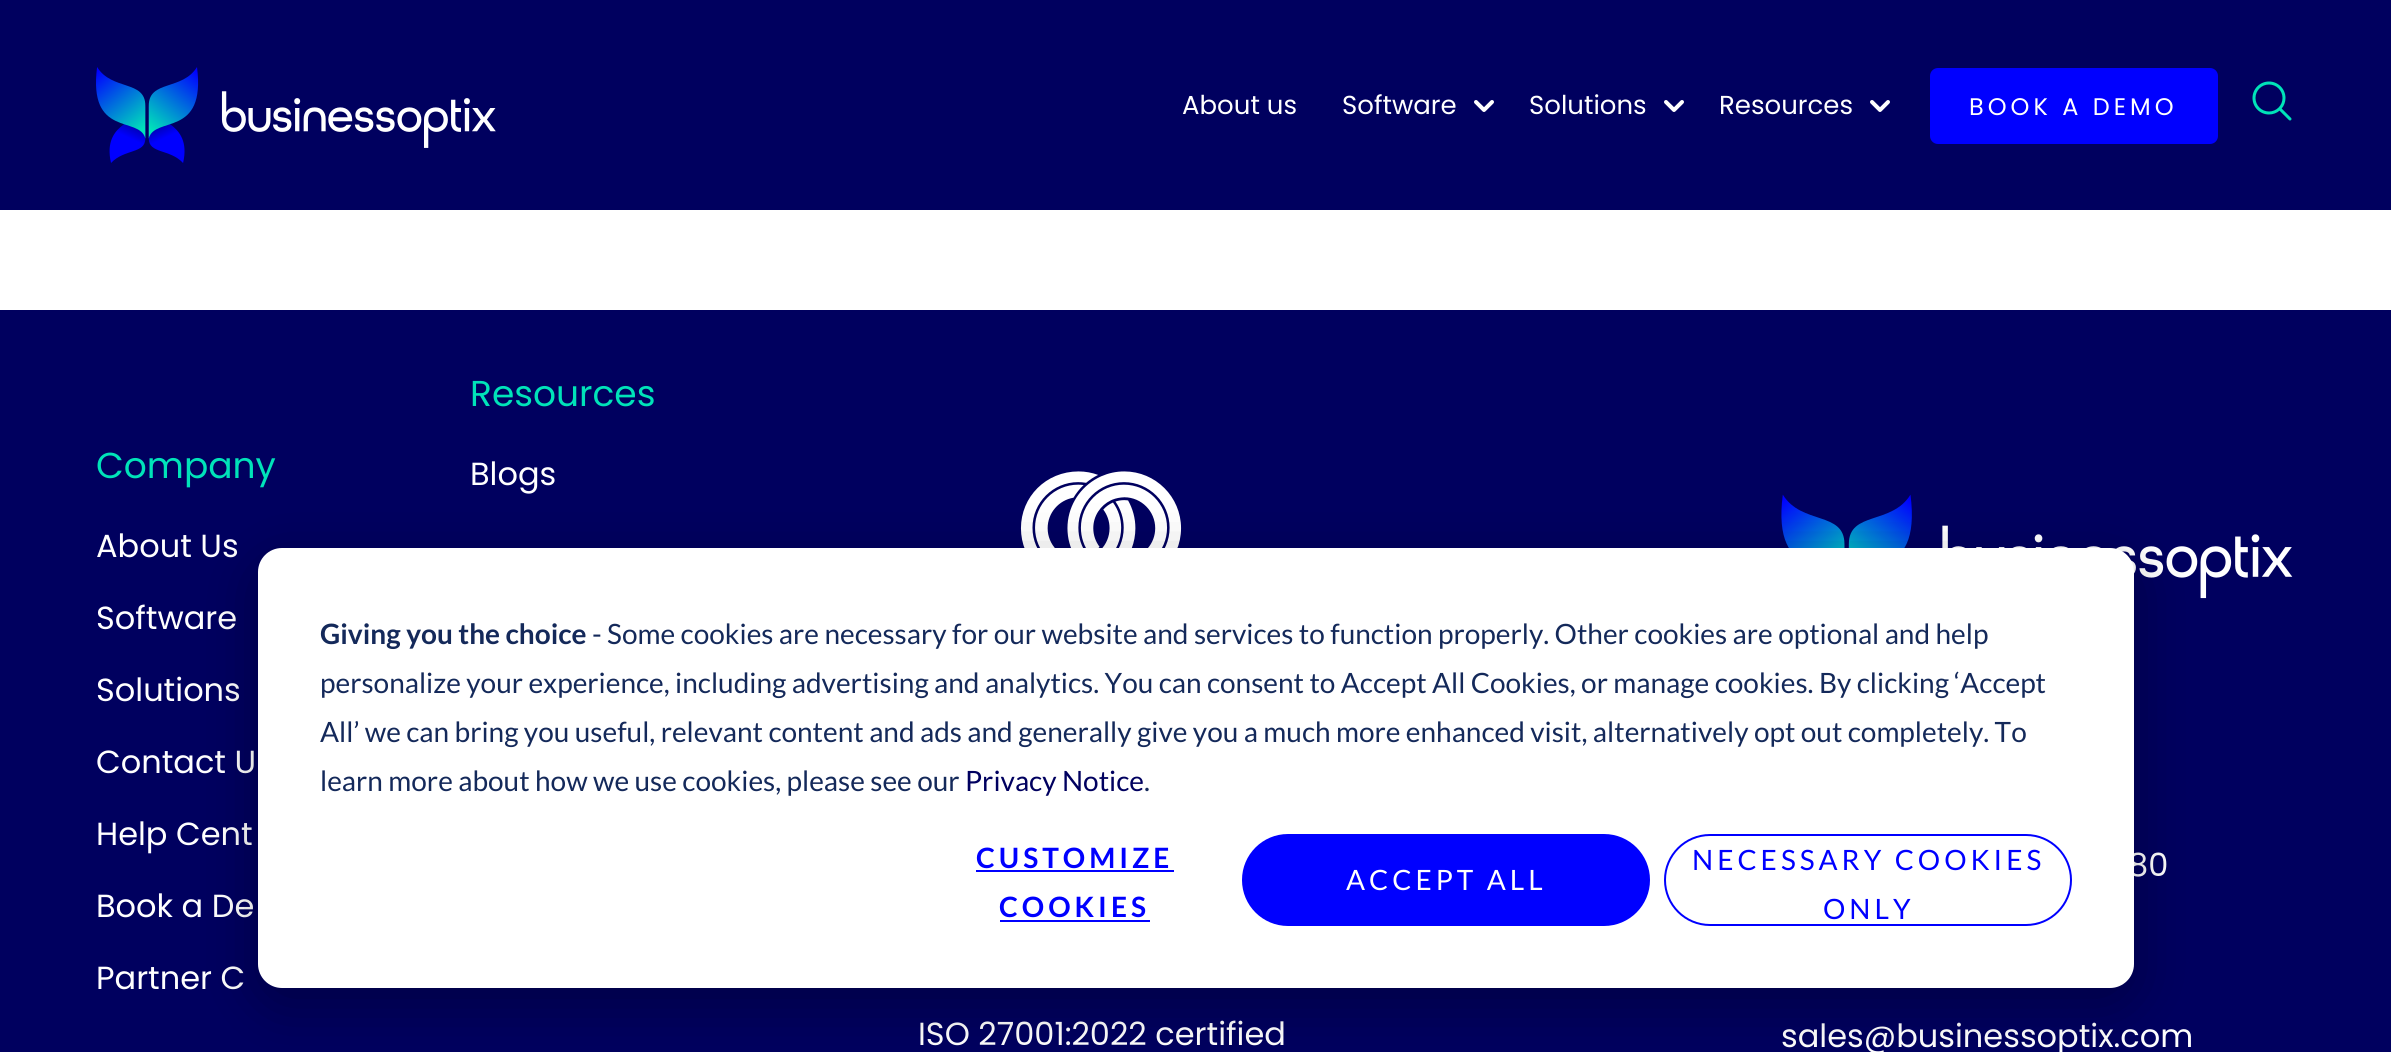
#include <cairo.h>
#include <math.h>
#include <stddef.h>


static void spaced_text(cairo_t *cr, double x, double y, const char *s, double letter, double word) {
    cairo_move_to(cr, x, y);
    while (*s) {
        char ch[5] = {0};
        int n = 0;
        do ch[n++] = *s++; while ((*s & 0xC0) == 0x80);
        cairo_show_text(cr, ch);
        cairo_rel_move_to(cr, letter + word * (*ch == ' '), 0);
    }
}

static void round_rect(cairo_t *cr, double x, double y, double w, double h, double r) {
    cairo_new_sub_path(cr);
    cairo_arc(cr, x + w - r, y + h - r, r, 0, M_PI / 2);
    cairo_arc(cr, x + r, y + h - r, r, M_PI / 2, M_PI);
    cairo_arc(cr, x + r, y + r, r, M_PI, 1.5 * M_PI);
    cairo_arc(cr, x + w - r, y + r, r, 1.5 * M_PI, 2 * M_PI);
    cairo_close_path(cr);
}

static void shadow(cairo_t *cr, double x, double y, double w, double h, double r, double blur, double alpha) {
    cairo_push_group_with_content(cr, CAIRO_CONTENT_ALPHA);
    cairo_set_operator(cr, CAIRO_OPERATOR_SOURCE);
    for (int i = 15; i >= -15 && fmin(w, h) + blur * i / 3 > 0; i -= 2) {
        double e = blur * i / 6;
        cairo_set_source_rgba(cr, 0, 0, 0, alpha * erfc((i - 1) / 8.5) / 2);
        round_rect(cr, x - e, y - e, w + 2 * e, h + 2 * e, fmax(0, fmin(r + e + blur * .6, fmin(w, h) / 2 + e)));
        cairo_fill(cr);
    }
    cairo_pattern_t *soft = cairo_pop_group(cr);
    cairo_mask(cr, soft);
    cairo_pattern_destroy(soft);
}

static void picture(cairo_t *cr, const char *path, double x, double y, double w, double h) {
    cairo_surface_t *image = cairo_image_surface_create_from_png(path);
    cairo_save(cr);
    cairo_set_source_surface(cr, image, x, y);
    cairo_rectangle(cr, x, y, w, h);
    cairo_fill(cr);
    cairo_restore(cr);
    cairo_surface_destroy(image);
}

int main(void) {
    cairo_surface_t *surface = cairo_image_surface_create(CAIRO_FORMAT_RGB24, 2391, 1052);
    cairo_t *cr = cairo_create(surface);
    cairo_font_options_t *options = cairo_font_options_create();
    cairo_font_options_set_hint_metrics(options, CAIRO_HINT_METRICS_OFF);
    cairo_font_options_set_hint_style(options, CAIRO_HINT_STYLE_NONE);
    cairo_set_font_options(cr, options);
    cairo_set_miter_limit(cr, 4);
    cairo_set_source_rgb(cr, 1, 1, 1);
    cairo_paint(cr);
    cairo_set_source_rgb(cr, 0, 0, 0.373);
    cairo_rectangle(cr, 0, 0, 2391, 210);
    cairo_fill(cr);
    picture(cr, "img1.png", 96, 67, 400, 96);
    cairo_select_font_face(cr, "Poppins", CAIRO_FONT_SLANT_NORMAL, CAIRO_FONT_WEIGHT_NORMAL);
    cairo_set_font_size(cr, 26);
    cairo_set_source_rgb(cr, 1, 1, 1);
    cairo_move_to(cr, 1182, 114);
    cairo_show_text(cr, "About us");
    cairo_move_to(cr, 1342, 114);
    cairo_show_text(cr, "Software");
    picture(cr, "img2.png", 1474, 100, 20, 12);
    cairo_move_to(cr, 1529, 114);
    cairo_show_text(cr, "Solutions");
    picture(cr, "img2.png", 1664, 100, 20, 12);
    cairo_move_to(cr, 1719, 114);
    cairo_show_text(cr, "Resources");
    picture(cr, "img2.png", 1870, 100, 20, 12);
    cairo_set_source_rgb(cr, 0, 0, 1);
    round_rect(cr, 1930, 68, 288, 76, 8);
    cairo_fill(cr);
    cairo_set_font_size(cr, 24);
    cairo_set_source_rgb(cr, 1, 1, 1);
    spaced_text(cr, 1969, 115, "BOOK A DEMO", 4, 0);
    picture(cr, "img3.png", 2252, 81, 40, 40);
    cairo_set_source_rgb(cr, 0, 0, 0.373);
    cairo_rectangle(cr, 0, 310, 2391, 742);
    cairo_fill(cr);
    cairo_set_font_size(cr, 36);
    cairo_set_source_rgb(cr, 0, 0.89, 0.725);
    cairo_move_to(cr, 470, 406);
    cairo_show_text(cr, "Resources");
    cairo_set_font_size(cr, 32);
    cairo_set_source_rgb(cr, 1, 1, 1);
    cairo_move_to(cr, 470, 485);
    cairo_show_text(cr, "Blogs");
    cairo_set_font_size(cr, 36);
    cairo_set_source_rgb(cr, 0, 0.89, 0.725);
    cairo_move_to(cr, 96, 478);
    cairo_show_text(cr, "Company");
    cairo_set_font_size(cr, 32);
    cairo_set_source_rgb(cr, 1, 1, 1);
    cairo_move_to(cr, 96, 557);
    cairo_show_text(cr, "About Us");
    cairo_move_to(cr, 96, 629);
    cairo_show_text(cr, "Software");
    cairo_move_to(cr, 96, 701);
    cairo_show_text(cr, "Solutions");
    cairo_move_to(cr, 96, 773);
    cairo_show_text(cr, "Contact U");
    cairo_move_to(cr, 96, 845);
    cairo_show_text(cr, "Help Cent");
    cairo_move_to(cr, 96, 917);
    cairo_show_text(cr, "Book a De");
    cairo_move_to(cr, 96, 989);
    cairo_show_text(cr, "Partner C");
    picture(cr, "img4.png", 1020, 471, 162, 77);
    cairo_move_to(cr, 918, 1045);
    cairo_show_text(cr, "ISO 27001:2022 certified");
    picture(cr, "img5.png", 1781, 494, 512, 105);
    cairo_move_to(cr, 2128, 876);
    cairo_show_text(cr, "80");
    cairo_move_to(cr, 1781, 1047);
    cairo_show_text(cr, "sales@businessoptix.com");
    cairo_set_source_rgb(cr, 0, 0, 0);
    shadow(cr, 258, 564, 1876, 440, 24, 28, 0.28);
    cairo_set_source_rgb(cr, 1, 1, 1);
    round_rect(cr, 258, 548, 1876, 440, 24);
    cairo_fill(cr);
    cairo_select_font_face(cr, "Lato", CAIRO_FONT_SLANT_NORMAL, CAIRO_FONT_WEIGHT_BOLD);
    cairo_set_font_size(cr, 28);
    cairo_set_source_rgb(cr, 0.082, 0.161, 0.353);
    cairo_move_to(cr, 320, 644);
    cairo_show_text(cr, "Giving you the choice");
    cairo_select_font_face(cr, "Lato", CAIRO_FONT_SLANT_NORMAL, CAIRO_FONT_WEIGHT_NORMAL);
    cairo_move_to(cr, 592, 644);
    cairo_show_text(cr, "- Some cookies are necessary for our website and services to function properly. Other cookies are optional and help");
    cairo_move_to(cr, 320, 693);
    cairo_show_text(cr, "personalize your experience, including advertising and analytics. You can consent to Accept All Cookies, or manage cookies. By clicking ‘Accept");
    cairo_move_to(cr, 320, 742);
    cairo_show_text(cr, "All’ we can bring you useful, relevant content and ads and generally give you a much more enhanced visit, alternatively opt out completely. To");
    cairo_move_to(cr, 320, 791);
    cairo_show_text(cr, "learn more about how we use cookies, please see our");
    cairo_set_source_rgb(cr, 0, 0, 0.373);
    cairo_move_to(cr, 965, 791);
    cairo_show_text(cr, "Privacy Notice");
    cairo_set_source_rgb(cr, 0.082, 0.161, 0.353);
    cairo_move_to(cr, 1144, 791);
    cairo_show_text(cr, ".");
    cairo_select_font_face(cr, "Lato", CAIRO_FONT_SLANT_NORMAL, CAIRO_FONT_WEIGHT_BOLD);
    cairo_set_source_rgb(cr, 0, 0, 1);
    spaced_text(cr, 976, 868, "CUSTOMIZE", 4, 0);
    cairo_rectangle(cr, 976, 870, 198, 2);
    cairo_fill(cr);
    spaced_text(cr, 999, 917, "COOKIES", 4, 0);
    cairo_rectangle(cr, 1000, 920, 150, 2);
    cairo_fill(cr);
    round_rect(cr, 1243, 835, 406, 90, 45);
    cairo_fill_preserve(cr);
    cairo_stroke(cr);
    cairo_select_font_face(cr, "Lato", CAIRO_FONT_SLANT_NORMAL, CAIRO_FONT_WEIGHT_NORMAL);
    cairo_set_source_rgb(cr, 1, 1, 1);
    spaced_text(cr, 1346, 890, "ACCEPT ALL", 4, 0);
    round_rect(cr, 1665, 835, 406, 90, 45);
    cairo_set_source_rgb(cr, 0, 0, 1);
    cairo_stroke(cr);
    spaced_text(cr, 1692, 870, "NECESSARY COOKIES", 4, 0);
    spaced_text(cr, 1823, 919, "ONLY", 4, 0);
    cairo_surface_write_to_png(surface, "page.png");
    cairo_font_options_destroy(options);
    cairo_destroy(cr);
    cairo_surface_destroy(surface);
    return 0;
}
